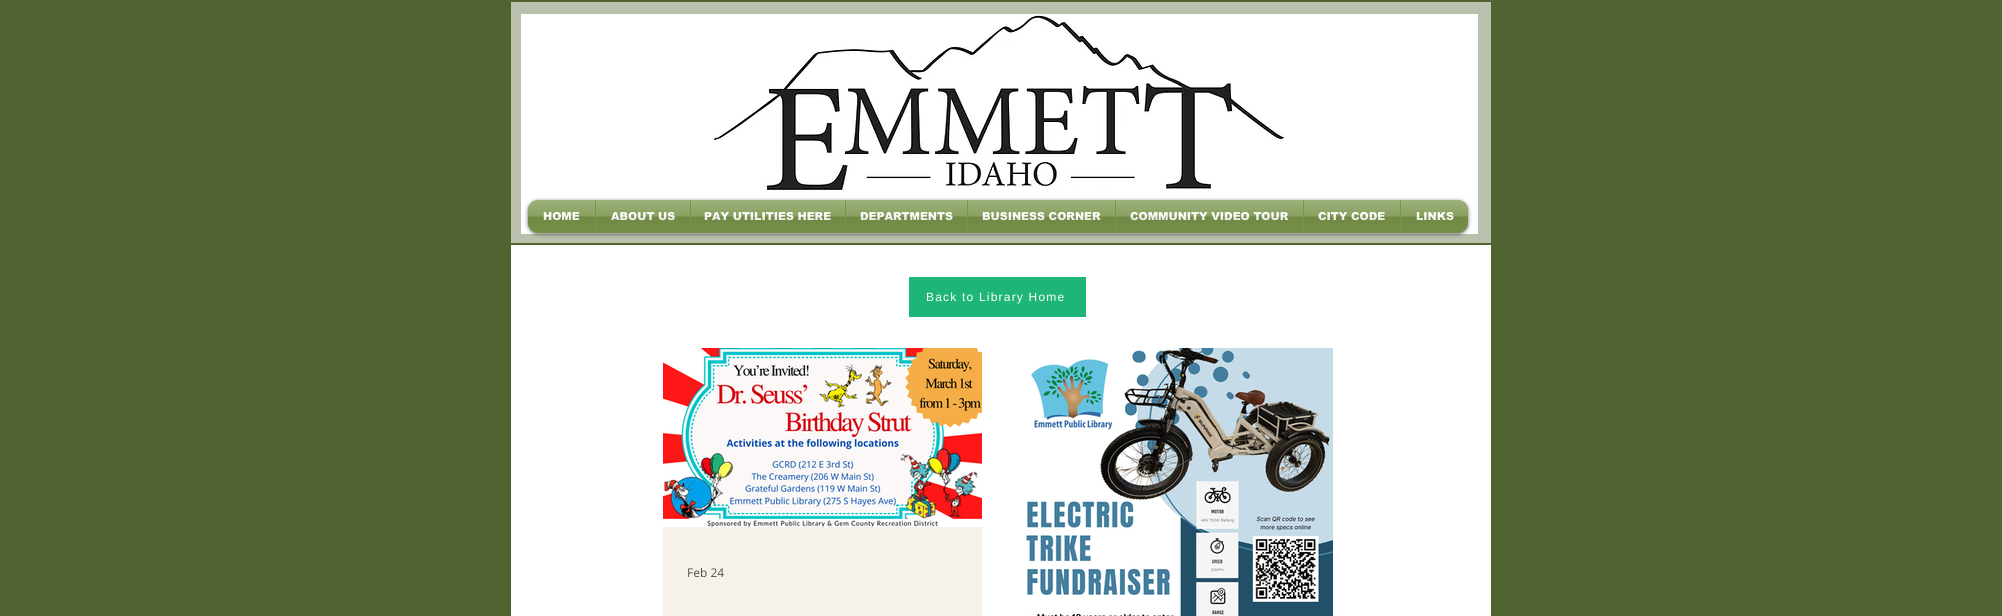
#include <cairo.h>
#include <math.h>
#include <stddef.h>


static void spaced_text(cairo_t *cr, double x, double y, const char *s, double letter, double word) {
    cairo_move_to(cr, x, y);
    while (*s) {
        char ch[5] = {0};
        int n = 0;
        do ch[n++] = *s++; while ((*s & 0xC0) == 0x80);
        cairo_show_text(cr, ch);
        cairo_rel_move_to(cr, letter + word * (*ch == ' '), 0);
    }
}

static void round_rect(cairo_t *cr, double x, double y, double w, double h, double r) {
    cairo_new_sub_path(cr);
    cairo_arc(cr, x + w - r, y + h - r, r, 0, M_PI / 2);
    cairo_arc(cr, x + r, y + h - r, r, M_PI / 2, M_PI);
    cairo_arc(cr, x + r, y + r, r, M_PI, 1.5 * M_PI);
    cairo_arc(cr, x + w - r, y + r, r, 1.5 * M_PI, 2 * M_PI);
    cairo_close_path(cr);
}

static void shadow(cairo_t *cr, double x, double y, double w, double h, double r, double blur, double alpha) {
    cairo_push_group_with_content(cr, CAIRO_CONTENT_ALPHA);
    cairo_set_operator(cr, CAIRO_OPERATOR_SOURCE);
    for (int i = 15; i >= -15 && fmin(w, h) + blur * i / 3 > 0; i -= 2) {
        double e = blur * i / 6;
        cairo_set_source_rgba(cr, 0, 0, 0, alpha * erfc((i - 1) / 8.5) / 2);
        round_rect(cr, x - e, y - e, w + 2 * e, h + 2 * e, fmax(0, fmin(r + e + blur * .6, fmin(w, h) / 2 + e)));
        cairo_fill(cr);
    }
    cairo_pattern_t *soft = cairo_pop_group(cr);
    cairo_mask(cr, soft);
    cairo_pattern_destroy(soft);
}

static void picture(cairo_t *cr, const char *path, double x, double y, double w, double h) {
    cairo_surface_t *image = cairo_image_surface_create_from_png(path);
    cairo_save(cr);
    cairo_set_source_surface(cr, image, x, y);
    cairo_rectangle(cr, x, y, w, h);
    cairo_fill(cr);
    cairo_restore(cr);
    cairo_surface_destroy(image);
}

int main(void) {
    cairo_surface_t *surface = cairo_image_surface_create(CAIRO_FORMAT_RGB24, 2002, 616);
    cairo_t *cr = cairo_create(surface);
    cairo_font_options_t *options = cairo_font_options_create();
    cairo_font_options_set_hint_metrics(options, CAIRO_HINT_METRICS_OFF);
    cairo_font_options_set_hint_style(options, CAIRO_HINT_STYLE_NONE);
    cairo_set_font_options(cr, options);
    cairo_set_miter_limit(cr, 4);
    cairo_set_source_rgb(cr, 0.318, 0.388, 0.192);
    cairo_paint(cr);
    cairo_set_source_rgb(cr, 0.725, 0.757, 0.678);
    cairo_rectangle(cr, 511, 2, 980, 241);
    cairo_fill(cr);
    cairo_set_source_rgb(cr, 1, 1, 1);
    cairo_rectangle(cr, 521, 14, 957, 220);
    cairo_fill(cr);
    picture(cr, "img1.png", 712, 14, 572, 176);
    cairo_set_source_rgb(cr, 0, 0, 0);
    shadow(cr, 528, 201, 940, 33, 10, 2, 0.6);
    picture(cr, "img2.png", 528, 200, 940, 33);
    cairo_set_source_rgb(cr, 0.475, 0.58, 0.29);
    cairo_new_path(cr);
    cairo_move_to(cr, 538, 200);
    cairo_line_to(cr, 595, 200);
    cairo_line_to(cr, 595, 233);
    cairo_line_to(cr, 538, 233);
    cairo_curve_to(cr, 532.5, 233, 528, 228.5, 528, 223);
    cairo_line_to(cr, 528, 210);
    cairo_curve_to(cr, 528, 204.5, 532.5, 200, 538, 200);
    cairo_close_path(cr);
    cairo_fill(cr);
    cairo_select_font_face(cr, "arial Black", CAIRO_FONT_SLANT_NORMAL, CAIRO_FONT_WEIGHT_NORMAL);
    cairo_set_font_size(cr, 11);
    cairo_set_source_rgb(cr, 1, 1, 1);
    cairo_move_to(cr, 543, 220);
    cairo_show_text(cr, "HOME");
    picture(cr, "img3.png", 528, 200, 67, 33);
    cairo_set_source_rgb(cr, 0.475, 0.58, 0.29);
    cairo_rectangle(cr, 595, 200, 805, 33);
    cairo_fill(cr);
    cairo_set_source_rgb(cr, 1, 1, 1);
    cairo_move_to(cr, 611, 220);
    cairo_show_text(cr, "ABOUT US");
    picture(cr, "img4.png", 596, 200, 94, 33);
    cairo_move_to(cr, 704, 220);
    cairo_show_text(cr, "PAY UTILITIES HERE");
    picture(cr, "img5.png", 691, 200, 154, 33);
    cairo_move_to(cr, 860, 220);
    cairo_show_text(cr, "DEPARTMENTS");
    picture(cr, "img6.png", 846, 200, 121, 33);
    cairo_move_to(cr, 982, 220);
    cairo_show_text(cr, "BUSINESS CORNER");
    picture(cr, "img7.png", 968, 200, 147, 33);
    cairo_move_to(cr, 1130, 220);
    cairo_show_text(cr, "COMMUNITY VIDEO TOUR");
    picture(cr, "img8.png", 1116, 200, 187, 33);
    cairo_move_to(cr, 1318, 220);
    cairo_show_text(cr, "CITY CODE");
    picture(cr, "img9.png", 1304, 200, 96, 33);
    cairo_set_source_rgb(cr, 0.475, 0.58, 0.29);
    cairo_new_path(cr);
    cairo_move_to(cr, 1400, 200);
    cairo_line_to(cr, 1458, 200);
    cairo_curve_to(cr, 1463.5, 200, 1468, 204.5, 1468, 210);
    cairo_line_to(cr, 1468, 223);
    cairo_curve_to(cr, 1468, 228.5, 1463.5, 233, 1458, 233);
    cairo_line_to(cr, 1400, 233);
    cairo_close_path(cr);
    cairo_fill(cr);
    cairo_set_source_rgb(cr, 1, 1, 1);
    cairo_move_to(cr, 1416, 220);
    cairo_show_text(cr, "LINKS");
    picture(cr, "img10.png", 1401, 200, 67, 33);
    cairo_rectangle(cr, 511, 245, 980, 371);
    cairo_fill(cr);
    cairo_set_source_rgb(cr, 0.114, 0.71, 0.471);
    cairo_rectangle(cr, 909, 277, 177, 40);
    cairo_fill(cr);
    cairo_select_font_face(cr, "Liberation Sans", CAIRO_FONT_SLANT_NORMAL, CAIRO_FONT_WEIGHT_NORMAL);
    cairo_set_font_size(cr, 12);
    cairo_set_source_rgb(cr, 1, 1, 1);
    spaced_text(cr, 926, 301, "Back to Library Home", 1.2, 0);
    picture(cr, "img11.png", 663, 348, 319, 179);
    cairo_set_source_rgb(cr, 0.961, 0.945, 0.914);
    cairo_rectangle(cr, 663, 527, 319, 89);
    cairo_fill(cr);
    cairo_select_font_face(cr, "Open Sans", CAIRO_FONT_SLANT_NORMAL, CAIRO_FONT_WEIGHT_NORMAL);
    cairo_set_source_rgb(cr, 0.318, 0.318, 0.318);
    cairo_move_to(cr, 687, 577);
    cairo_show_text(cr, "Feb 24");
    picture(cr, "img12.png", 1014, 348, 319, 268);
    cairo_surface_write_to_png(surface, "page.png");
    cairo_font_options_destroy(options);
    cairo_destroy(cr);
    cairo_surface_destroy(surface);
    return 0;
}
